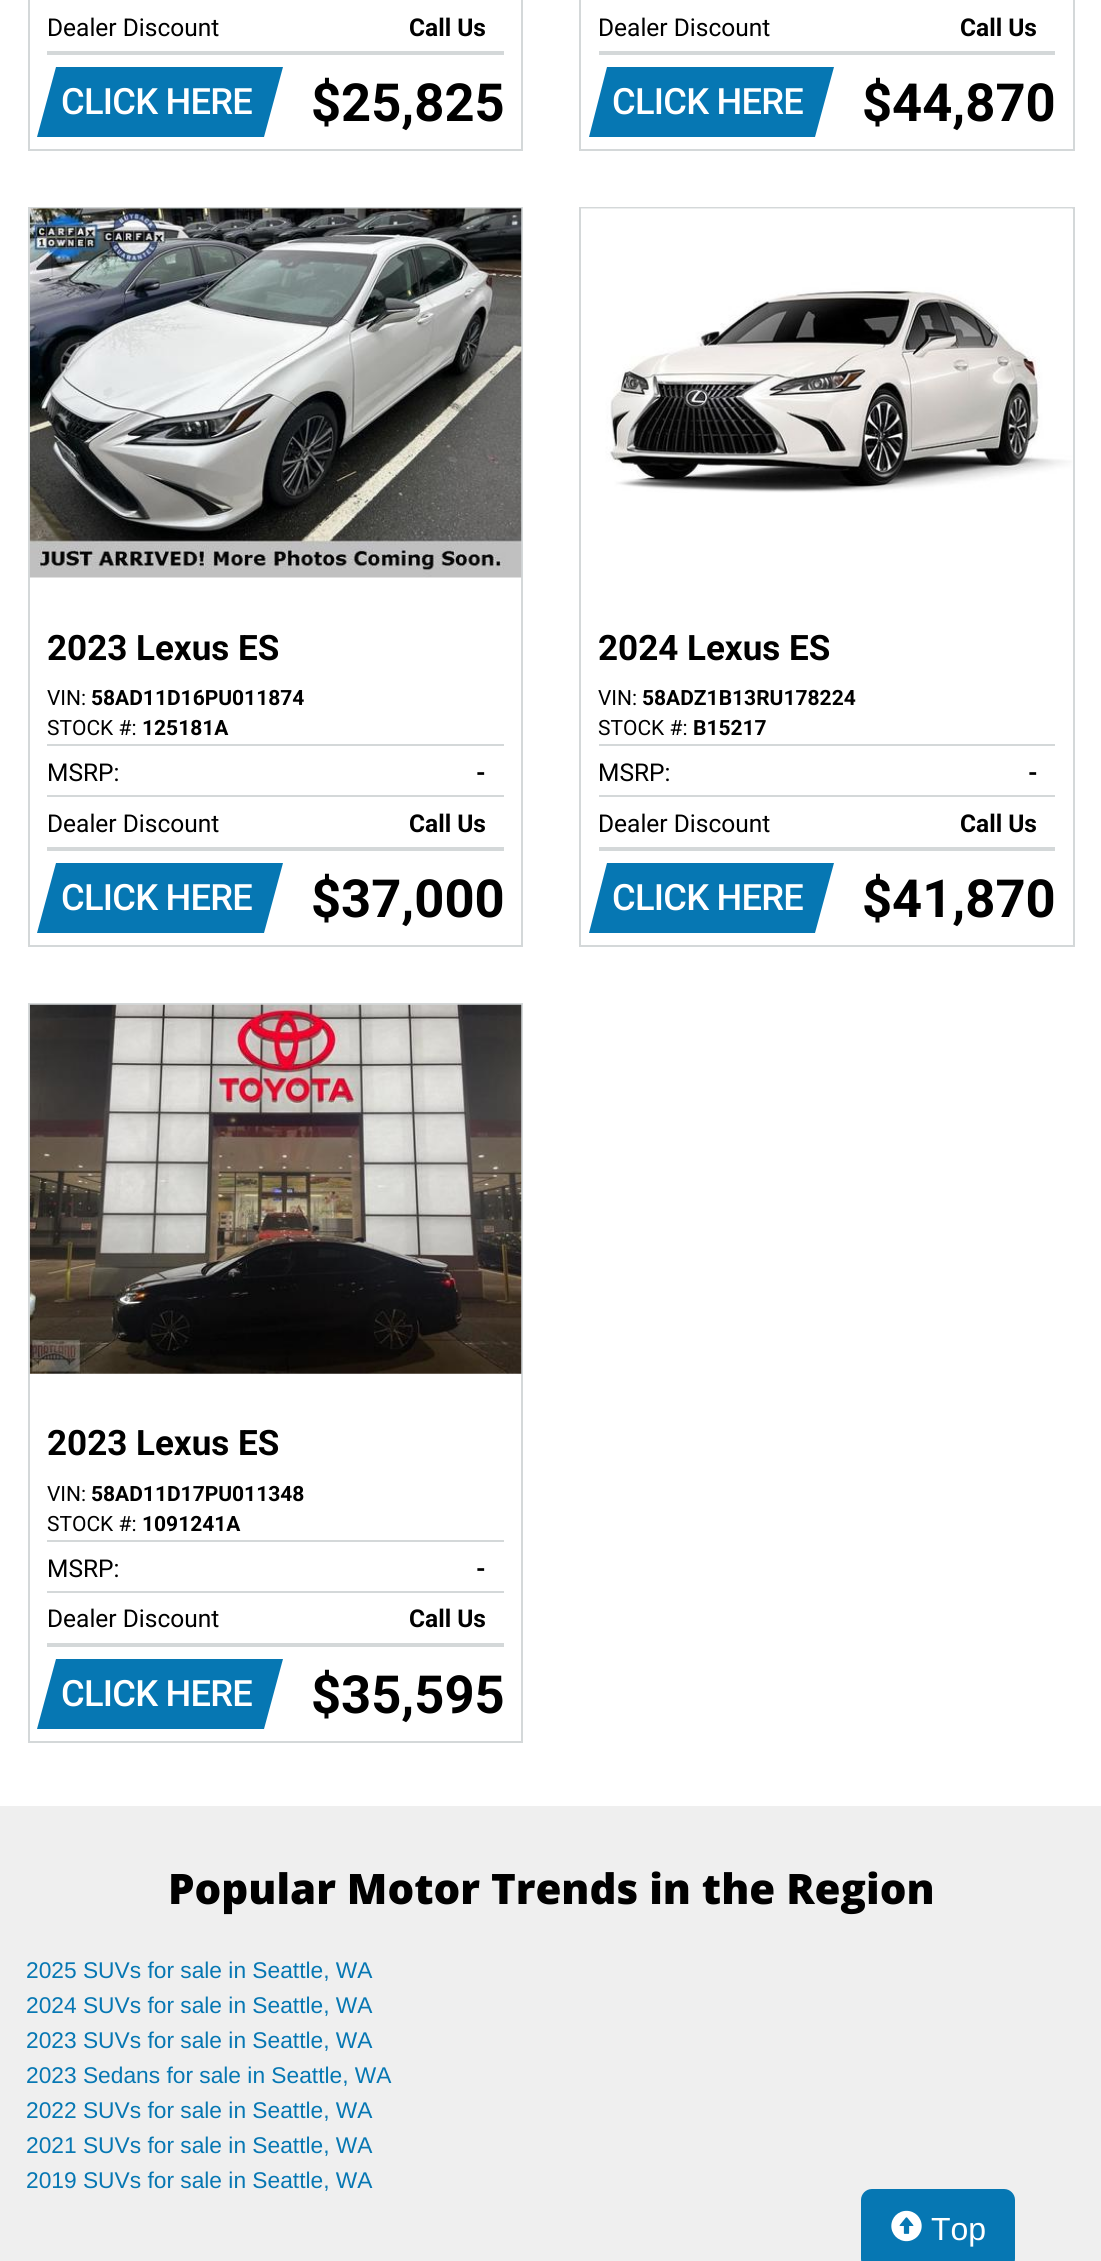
#include <cairo.h>
#include <math.h>
#include <stddef.h>


static void spaced_text(cairo_t *cr, double x, double y, const char *s, double letter, double word) {
    cairo_move_to(cr, x, y);
    while (*s) {
        char ch[5] = {0};
        int n = 0;
        do ch[n++] = *s++; while ((*s & 0xC0) == 0x80);
        cairo_show_text(cr, ch);
        cairo_rel_move_to(cr, letter + word * (*ch == ' '), 0);
    }
}

static void round_rect(cairo_t *cr, double x, double y, double w, double h, double r) {
    cairo_new_sub_path(cr);
    cairo_arc(cr, x + w - r, y + h - r, r, 0, M_PI / 2);
    cairo_arc(cr, x + r, y + h - r, r, M_PI / 2, M_PI);
    cairo_arc(cr, x + r, y + r, r, M_PI, 1.5 * M_PI);
    cairo_arc(cr, x + w - r, y + r, r, 1.5 * M_PI, 2 * M_PI);
    cairo_close_path(cr);
}

static void picture(cairo_t *cr, const char *path, double x, double y, double w, double h) {
    cairo_surface_t *image = cairo_image_surface_create_from_png(path);
    cairo_save(cr);
    cairo_set_source_surface(cr, image, x, y);
    cairo_rectangle(cr, x, y, w, h);
    cairo_fill(cr);
    cairo_restore(cr);
    cairo_surface_destroy(image);
}

int main(void) {
    cairo_surface_t *surface = cairo_image_surface_create(CAIRO_FORMAT_RGB24, 1101, 2261);
    cairo_t *cr = cairo_create(surface);
    cairo_font_options_t *options = cairo_font_options_create();
    cairo_font_options_set_hint_metrics(options, CAIRO_HINT_METRICS_OFF);
    cairo_font_options_set_hint_style(options, CAIRO_HINT_STYLE_NONE);
    cairo_set_font_options(cr, options);
    cairo_set_miter_limit(cr, 4);
    cairo_set_source_rgb(cr, 1, 1, 1);
    cairo_paint(cr);
    cairo_rectangle(cr, 29, -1, 493, 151);
    cairo_set_source_rgb(cr, 0.831, 0.847, 0.851);
    cairo_stroke(cr);
    cairo_rectangle(cr, 47, 51, 457, 4);
    cairo_fill(cr);
    cairo_select_font_face(cr, "Roboto", CAIRO_FONT_SLANT_NORMAL, CAIRO_FONT_WEIGHT_NORMAL);
    cairo_set_font_size(cr, 24.5);
    cairo_set_source_rgb(cr, 0, 0, 0);
    cairo_move_to(cr, 47, 36);
    cairo_show_text(cr, "Dealer Discount");
    cairo_select_font_face(cr, "Roboto", CAIRO_FONT_SLANT_NORMAL, CAIRO_FONT_WEIGHT_BOLD);
    cairo_move_to(cr, 409, 36);
    cairo_show_text(cr, "Call Us");
    cairo_set_source_rgb(cr, 0.027, 0.467, 0.702);
    cairo_new_path(cr);
    cairo_move_to(cr, 56, 67);
    cairo_line_to(cr, 283, 67);
    cairo_line_to(cr, 264, 137);
    cairo_line_to(cr, 37, 137);
    cairo_close_path(cr);
    cairo_fill(cr);
    cairo_select_font_face(cr, "Roboto Medium", CAIRO_FONT_SLANT_NORMAL, CAIRO_FONT_WEIGHT_NORMAL);
    cairo_set_font_size(cr, 36.25);
    cairo_set_source_rgb(cr, 1, 1, 1);
    spaced_text(cr, 61, 114, "CLICK HERE", -0.75, 0);
    cairo_select_font_face(cr, "Roboto", CAIRO_FONT_SLANT_NORMAL, CAIRO_FONT_WEIGHT_BOLD);
    cairo_set_font_size(cr, 52.5);
    cairo_set_source_rgb(cr, 0, 0, 0);
    cairo_move_to(cr, 311, 121);
    cairo_show_text(cr, "$25,825");
    cairo_rectangle(cr, 580, -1, 494, 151);
    cairo_set_source_rgb(cr, 0.831, 0.847, 0.851);
    cairo_stroke(cr);
    cairo_rectangle(cr, 599, 51, 456, 4);
    cairo_fill(cr);
    cairo_select_font_face(cr, "Roboto", CAIRO_FONT_SLANT_NORMAL, CAIRO_FONT_WEIGHT_NORMAL);
    cairo_set_font_size(cr, 24.5);
    cairo_set_source_rgb(cr, 0, 0, 0);
    cairo_move_to(cr, 598, 36);
    cairo_show_text(cr, "Dealer Discount");
    cairo_select_font_face(cr, "Roboto", CAIRO_FONT_SLANT_NORMAL, CAIRO_FONT_WEIGHT_BOLD);
    cairo_move_to(cr, 960, 36);
    cairo_show_text(cr, "Call Us");
    cairo_set_source_rgb(cr, 0.027, 0.467, 0.702);
    cairo_new_path(cr);
    cairo_move_to(cr, 607, 67);
    cairo_line_to(cr, 834, 67);
    cairo_line_to(cr, 815, 137);
    cairo_line_to(cr, 589, 137);
    cairo_close_path(cr);
    cairo_fill(cr);
    cairo_select_font_face(cr, "Roboto Medium", CAIRO_FONT_SLANT_NORMAL, CAIRO_FONT_WEIGHT_NORMAL);
    cairo_set_font_size(cr, 36.25);
    cairo_set_source_rgb(cr, 1, 1, 1);
    spaced_text(cr, 612, 114, "CLICK HERE", -0.75, 0);
    cairo_select_font_face(cr, "Roboto", CAIRO_FONT_SLANT_NORMAL, CAIRO_FONT_WEIGHT_BOLD);
    cairo_set_font_size(cr, 52.5);
    cairo_set_source_rgb(cr, 0, 0, 0);
    cairo_move_to(cr, 862, 121);
    cairo_show_text(cr, "$44,870");
    cairo_rectangle(cr, 29, 208, 493, 738);
    cairo_set_source_rgb(cr, 0.831, 0.847, 0.851);
    cairo_stroke(cr);
    picture(cr, "img1.png", 29, 208, 493, 370);
    cairo_set_font_size(cr, 35);
    cairo_set_source_rgb(cr, 0, 0, 0);
    cairo_move_to(cr, 47, 660);
    cairo_show_text(cr, "2023 Lexus ES");
    cairo_select_font_face(cr, "Roboto", CAIRO_FONT_SLANT_NORMAL, CAIRO_FONT_WEIGHT_NORMAL);
    cairo_set_font_size(cr, 21);
    cairo_move_to(cr, 47, 705);
    cairo_show_text(cr, "VIN:");
    cairo_select_font_face(cr, "Roboto", CAIRO_FONT_SLANT_NORMAL, CAIRO_FONT_WEIGHT_BOLD);
    cairo_move_to(cr, 91, 705);
    cairo_show_text(cr, "58AD11D16PU011874");
    cairo_select_font_face(cr, "Roboto", CAIRO_FONT_SLANT_NORMAL, CAIRO_FONT_WEIGHT_NORMAL);
    cairo_move_to(cr, 47, 735);
    cairo_show_text(cr, "STOCK #:");
    cairo_select_font_face(cr, "Roboto", CAIRO_FONT_SLANT_NORMAL, CAIRO_FONT_WEIGHT_BOLD);
    cairo_move_to(cr, 142, 735);
    cairo_show_text(cr, "125181A");
    cairo_set_source_rgb(cr, 0.831, 0.847, 0.851);
    cairo_rectangle(cr, 47, 744, 457, 2);
    cairo_fill(cr);
    cairo_rectangle(cr, 47, 795, 457, 2);
    cairo_fill(cr);
    cairo_select_font_face(cr, "Roboto", CAIRO_FONT_SLANT_NORMAL, CAIRO_FONT_WEIGHT_NORMAL);
    cairo_set_font_size(cr, 24.5);
    cairo_set_source_rgb(cr, 0, 0, 0);
    cairo_move_to(cr, 47, 781);
    cairo_show_text(cr, "MSRP:");
    cairo_select_font_face(cr, "Roboto", CAIRO_FONT_SLANT_NORMAL, CAIRO_FONT_WEIGHT_BOLD);
    cairo_move_to(cr, 476, 781);
    cairo_show_text(cr, "-");
    cairo_set_source_rgb(cr, 0.831, 0.847, 0.851);
    cairo_rectangle(cr, 47, 847, 457, 4);
    cairo_fill(cr);
    cairo_select_font_face(cr, "Roboto", CAIRO_FONT_SLANT_NORMAL, CAIRO_FONT_WEIGHT_NORMAL);
    cairo_set_source_rgb(cr, 0, 0, 0);
    cairo_move_to(cr, 47, 832);
    cairo_show_text(cr, "Dealer Discount");
    cairo_select_font_face(cr, "Roboto", CAIRO_FONT_SLANT_NORMAL, CAIRO_FONT_WEIGHT_BOLD);
    cairo_move_to(cr, 409, 832);
    cairo_show_text(cr, "Call Us");
    cairo_set_source_rgb(cr, 0.027, 0.467, 0.702);
    cairo_new_path(cr);
    cairo_move_to(cr, 56, 863);
    cairo_line_to(cr, 283, 863);
    cairo_line_to(cr, 264, 933);
    cairo_line_to(cr, 37, 933);
    cairo_close_path(cr);
    cairo_fill(cr);
    cairo_select_font_face(cr, "Roboto Medium", CAIRO_FONT_SLANT_NORMAL, CAIRO_FONT_WEIGHT_NORMAL);
    cairo_set_font_size(cr, 36.25);
    cairo_set_source_rgb(cr, 1, 1, 1);
    spaced_text(cr, 61, 910, "CLICK HERE", -0.75, 0);
    cairo_select_font_face(cr, "Roboto", CAIRO_FONT_SLANT_NORMAL, CAIRO_FONT_WEIGHT_BOLD);
    cairo_set_font_size(cr, 52.5);
    cairo_set_source_rgb(cr, 0, 0, 0);
    cairo_move_to(cr, 311, 917);
    cairo_show_text(cr, "$37,000");
    cairo_rectangle(cr, 580, 208, 494, 738);
    cairo_set_source_rgb(cr, 0.831, 0.847, 0.851);
    cairo_stroke(cr);
    picture(cr, "img2.png", 581, 208, 492, 285);
    cairo_set_font_size(cr, 35);
    cairo_set_source_rgb(cr, 0, 0, 0);
    cairo_move_to(cr, 598, 660);
    cairo_show_text(cr, "2024 Lexus ES");
    cairo_select_font_face(cr, "Roboto", CAIRO_FONT_SLANT_NORMAL, CAIRO_FONT_WEIGHT_NORMAL);
    cairo_set_font_size(cr, 21);
    cairo_move_to(cr, 598, 705);
    cairo_show_text(cr, "VIN:");
    cairo_select_font_face(cr, "Roboto", CAIRO_FONT_SLANT_NORMAL, CAIRO_FONT_WEIGHT_BOLD);
    cairo_move_to(cr, 642, 705);
    cairo_show_text(cr, "58ADZ1B13RU178224");
    cairo_select_font_face(cr, "Roboto", CAIRO_FONT_SLANT_NORMAL, CAIRO_FONT_WEIGHT_NORMAL);
    cairo_move_to(cr, 598, 735);
    cairo_show_text(cr, "STOCK #:");
    cairo_select_font_face(cr, "Roboto", CAIRO_FONT_SLANT_NORMAL, CAIRO_FONT_WEIGHT_BOLD);
    cairo_move_to(cr, 693, 735);
    cairo_show_text(cr, "B15217");
    cairo_set_source_rgb(cr, 0.831, 0.847, 0.851);
    cairo_rectangle(cr, 599, 744, 456, 2);
    cairo_fill(cr);
    cairo_rectangle(cr, 599, 795, 456, 2);
    cairo_fill(cr);
    cairo_select_font_face(cr, "Roboto", CAIRO_FONT_SLANT_NORMAL, CAIRO_FONT_WEIGHT_NORMAL);
    cairo_set_font_size(cr, 24.5);
    cairo_set_source_rgb(cr, 0, 0, 0);
    cairo_move_to(cr, 598, 781);
    cairo_show_text(cr, "MSRP:");
    cairo_select_font_face(cr, "Roboto", CAIRO_FONT_SLANT_NORMAL, CAIRO_FONT_WEIGHT_BOLD);
    cairo_move_to(cr, 1028, 781);
    cairo_show_text(cr, "-");
    cairo_set_source_rgb(cr, 0.831, 0.847, 0.851);
    cairo_rectangle(cr, 599, 847, 456, 4);
    cairo_fill(cr);
    cairo_select_font_face(cr, "Roboto", CAIRO_FONT_SLANT_NORMAL, CAIRO_FONT_WEIGHT_NORMAL);
    cairo_set_source_rgb(cr, 0, 0, 0);
    cairo_move_to(cr, 598, 832);
    cairo_show_text(cr, "Dealer Discount");
    cairo_select_font_face(cr, "Roboto", CAIRO_FONT_SLANT_NORMAL, CAIRO_FONT_WEIGHT_BOLD);
    cairo_move_to(cr, 960, 832);
    cairo_show_text(cr, "Call Us");
    cairo_set_source_rgb(cr, 0.027, 0.467, 0.702);
    cairo_new_path(cr);
    cairo_move_to(cr, 607, 863);
    cairo_line_to(cr, 834, 863);
    cairo_line_to(cr, 815, 933);
    cairo_line_to(cr, 589, 933);
    cairo_close_path(cr);
    cairo_fill(cr);
    cairo_select_font_face(cr, "Roboto Medium", CAIRO_FONT_SLANT_NORMAL, CAIRO_FONT_WEIGHT_NORMAL);
    cairo_set_font_size(cr, 36.25);
    cairo_set_source_rgb(cr, 1, 1, 1);
    spaced_text(cr, 612, 910, "CLICK HERE", -0.75, 0);
    cairo_select_font_face(cr, "Roboto", CAIRO_FONT_SLANT_NORMAL, CAIRO_FONT_WEIGHT_BOLD);
    cairo_set_font_size(cr, 52.5);
    cairo_set_source_rgb(cr, 0, 0, 0);
    cairo_move_to(cr, 862, 917);
    cairo_show_text(cr, "$41,870");
    cairo_rectangle(cr, 29, 1004, 493, 738);
    cairo_set_source_rgb(cr, 0.831, 0.847, 0.851);
    cairo_stroke(cr);
    picture(cr, "img3.png", 29, 1004, 493, 370);
    cairo_set_font_size(cr, 35);
    cairo_set_source_rgb(cr, 0, 0, 0);
    cairo_move_to(cr, 47, 1455);
    cairo_show_text(cr, "2023 Lexus ES");
    cairo_select_font_face(cr, "Roboto", CAIRO_FONT_SLANT_NORMAL, CAIRO_FONT_WEIGHT_NORMAL);
    cairo_set_font_size(cr, 21);
    cairo_move_to(cr, 47, 1501);
    cairo_show_text(cr, "VIN:");
    cairo_select_font_face(cr, "Roboto", CAIRO_FONT_SLANT_NORMAL, CAIRO_FONT_WEIGHT_BOLD);
    cairo_move_to(cr, 91, 1501);
    cairo_show_text(cr, "58AD11D17PU011348");
    cairo_select_font_face(cr, "Roboto", CAIRO_FONT_SLANT_NORMAL, CAIRO_FONT_WEIGHT_NORMAL);
    cairo_move_to(cr, 47, 1531);
    cairo_show_text(cr, "STOCK #:");
    cairo_select_font_face(cr, "Roboto", CAIRO_FONT_SLANT_NORMAL, CAIRO_FONT_WEIGHT_BOLD);
    cairo_move_to(cr, 142, 1531);
    cairo_show_text(cr, "1091241A");
    cairo_set_source_rgb(cr, 0.831, 0.847, 0.851);
    cairo_rectangle(cr, 47, 1540, 457, 2);
    cairo_fill(cr);
    cairo_rectangle(cr, 47, 1591, 457, 2);
    cairo_fill(cr);
    cairo_select_font_face(cr, "Roboto", CAIRO_FONT_SLANT_NORMAL, CAIRO_FONT_WEIGHT_NORMAL);
    cairo_set_font_size(cr, 24.5);
    cairo_set_source_rgb(cr, 0, 0, 0);
    cairo_move_to(cr, 47, 1577);
    cairo_show_text(cr, "MSRP:");
    cairo_select_font_face(cr, "Roboto", CAIRO_FONT_SLANT_NORMAL, CAIRO_FONT_WEIGHT_BOLD);
    cairo_move_to(cr, 476, 1577);
    cairo_show_text(cr, "-");
    cairo_set_source_rgb(cr, 0.831, 0.847, 0.851);
    cairo_rectangle(cr, 47, 1643, 457, 4);
    cairo_fill(cr);
    cairo_select_font_face(cr, "Roboto", CAIRO_FONT_SLANT_NORMAL, CAIRO_FONT_WEIGHT_NORMAL);
    cairo_set_source_rgb(cr, 0, 0, 0);
    cairo_move_to(cr, 47, 1627);
    cairo_show_text(cr, "Dealer Discount");
    cairo_select_font_face(cr, "Roboto", CAIRO_FONT_SLANT_NORMAL, CAIRO_FONT_WEIGHT_BOLD);
    cairo_move_to(cr, 409, 1627);
    cairo_show_text(cr, "Call Us");
    cairo_set_source_rgb(cr, 0.027, 0.467, 0.702);
    cairo_new_path(cr);
    cairo_move_to(cr, 56, 1659);
    cairo_line_to(cr, 283, 1659);
    cairo_line_to(cr, 264, 1729);
    cairo_line_to(cr, 37, 1729);
    cairo_close_path(cr);
    cairo_fill(cr);
    cairo_select_font_face(cr, "Roboto Medium", CAIRO_FONT_SLANT_NORMAL, CAIRO_FONT_WEIGHT_NORMAL);
    cairo_set_font_size(cr, 36.25);
    cairo_set_source_rgb(cr, 1, 1, 1);
    spaced_text(cr, 61, 1706, "CLICK HERE", -0.75, 0);
    cairo_select_font_face(cr, "Roboto", CAIRO_FONT_SLANT_NORMAL, CAIRO_FONT_WEIGHT_BOLD);
    cairo_set_font_size(cr, 52.5);
    cairo_set_source_rgb(cr, 0, 0, 0);
    cairo_move_to(cr, 311, 1713);
    cairo_show_text(cr, "$35,595");
    cairo_set_source_rgb(cr, 0.937, 0.937, 0.937);
    cairo_rectangle(cr, 0, 1806, 1101, 455);
    cairo_fill(cr);
    cairo_set_source_rgb(cr, 0.027, 0.467, 0.702);
    round_rect(cr, 862, 2190, 152, 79, 10);
    cairo_fill_preserve(cr);
    cairo_stroke(cr);
    picture(cr, "img4.png", 891, 2210, 31, 32);
    cairo_select_font_face(cr, "Liberation Sans", CAIRO_FONT_SLANT_NORMAL, CAIRO_FONT_WEIGHT_NORMAL);
    cairo_set_font_size(cr, 32);
    cairo_set_source_rgb(cr, 1, 1, 1);
    cairo_move_to(cr, 931, 2240);
    cairo_show_text(cr, "Top");
    cairo_select_font_face(cr, "Open Sans ExtraBold", CAIRO_FONT_SLANT_NORMAL, CAIRO_FONT_WEIGHT_NORMAL);
    cairo_set_font_size(cr, 42);
    cairo_set_source_rgb(cr, 0, 0, 0);
    cairo_move_to(cr, 168, 1904);
    cairo_show_text(cr, "Popular Motor Trends in the Region");
    cairo_select_font_face(cr, "Liberation Sans", CAIRO_FONT_SLANT_NORMAL, CAIRO_FONT_WEIGHT_NORMAL);
    cairo_set_font_size(cr, 22.75);
    cairo_set_source_rgb(cr, 0.027, 0.467, 0.702);
    cairo_move_to(cr, 26, 1978);
    cairo_show_text(cr, "2025 SUVs for sale in Seattle, WA");
    cairo_move_to(cr, 26, 2013);
    cairo_show_text(cr, "2024 SUVs for sale in Seattle, WA");
    cairo_move_to(cr, 26, 2048);
    cairo_show_text(cr, "2023 SUVs for sale in Seattle, WA");
    cairo_move_to(cr, 26, 2083);
    cairo_show_text(cr, "2023 Sedans for sale in Seattle, WA");
    cairo_move_to(cr, 26, 2118);
    cairo_show_text(cr, "2022 SUVs for sale in Seattle, WA");
    cairo_move_to(cr, 26, 2153);
    cairo_show_text(cr, "2021 SUVs for sale in Seattle, WA");
    cairo_move_to(cr, 26, 2188);
    cairo_show_text(cr, "2019 SUVs for sale in Seattle, WA");
    cairo_surface_write_to_png(surface, "page.png");
    cairo_font_options_destroy(options);
    cairo_destroy(cr);
    cairo_surface_destroy(surface);
    return 0;
}
